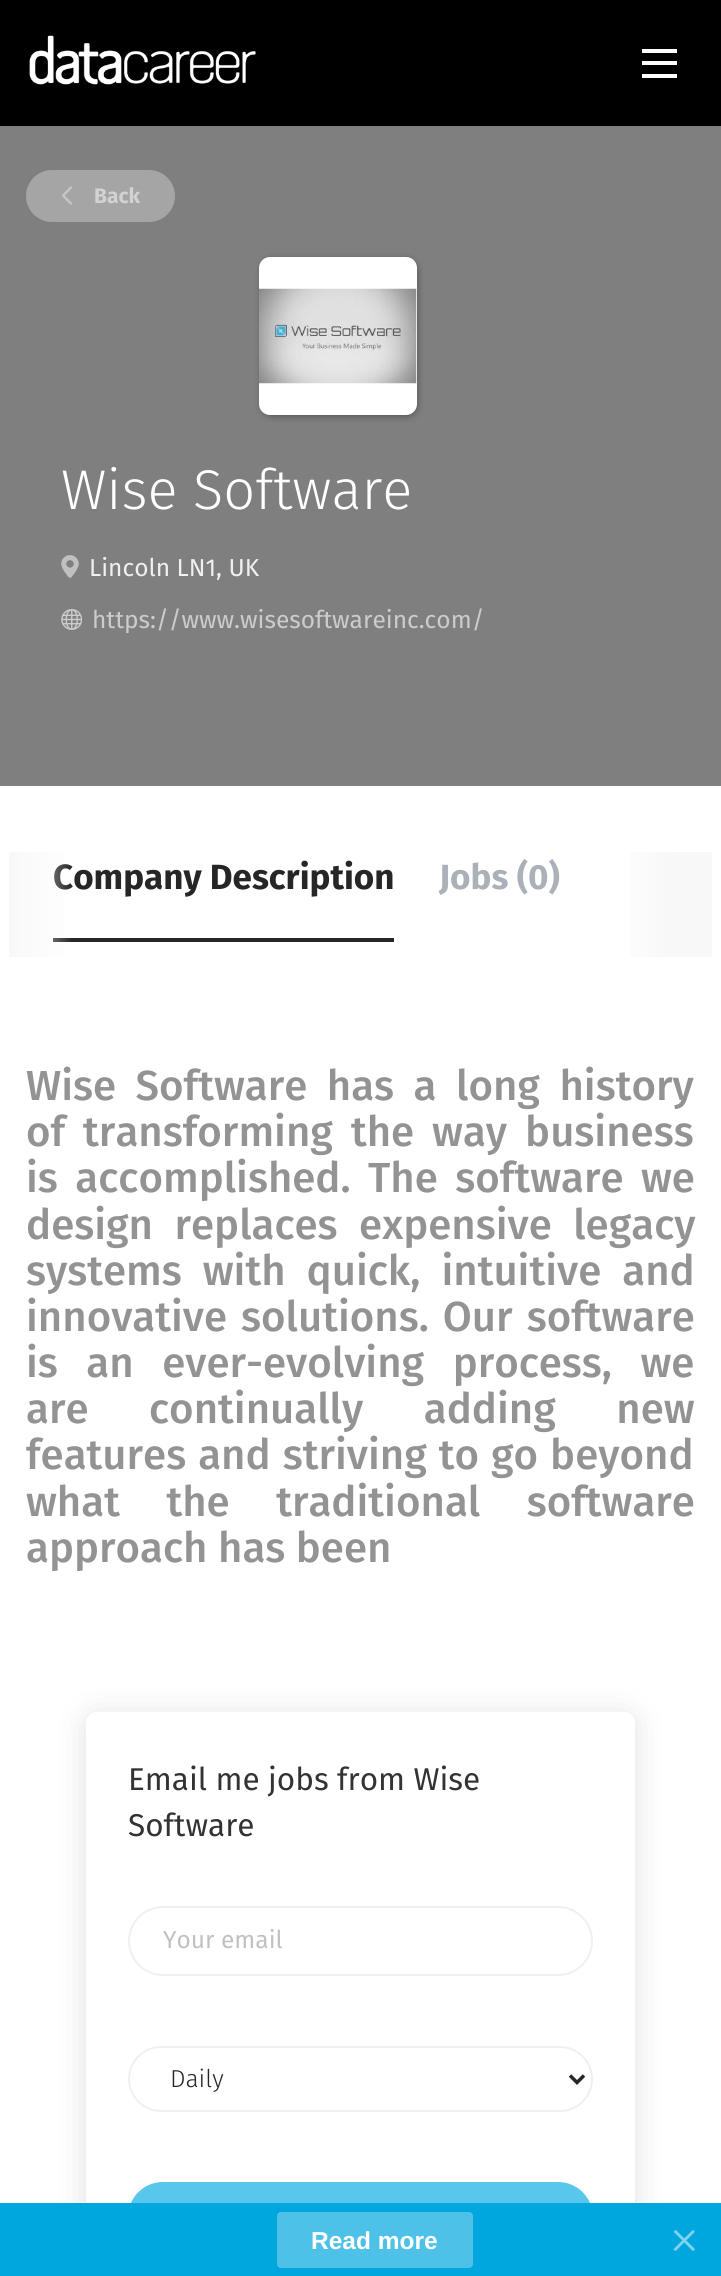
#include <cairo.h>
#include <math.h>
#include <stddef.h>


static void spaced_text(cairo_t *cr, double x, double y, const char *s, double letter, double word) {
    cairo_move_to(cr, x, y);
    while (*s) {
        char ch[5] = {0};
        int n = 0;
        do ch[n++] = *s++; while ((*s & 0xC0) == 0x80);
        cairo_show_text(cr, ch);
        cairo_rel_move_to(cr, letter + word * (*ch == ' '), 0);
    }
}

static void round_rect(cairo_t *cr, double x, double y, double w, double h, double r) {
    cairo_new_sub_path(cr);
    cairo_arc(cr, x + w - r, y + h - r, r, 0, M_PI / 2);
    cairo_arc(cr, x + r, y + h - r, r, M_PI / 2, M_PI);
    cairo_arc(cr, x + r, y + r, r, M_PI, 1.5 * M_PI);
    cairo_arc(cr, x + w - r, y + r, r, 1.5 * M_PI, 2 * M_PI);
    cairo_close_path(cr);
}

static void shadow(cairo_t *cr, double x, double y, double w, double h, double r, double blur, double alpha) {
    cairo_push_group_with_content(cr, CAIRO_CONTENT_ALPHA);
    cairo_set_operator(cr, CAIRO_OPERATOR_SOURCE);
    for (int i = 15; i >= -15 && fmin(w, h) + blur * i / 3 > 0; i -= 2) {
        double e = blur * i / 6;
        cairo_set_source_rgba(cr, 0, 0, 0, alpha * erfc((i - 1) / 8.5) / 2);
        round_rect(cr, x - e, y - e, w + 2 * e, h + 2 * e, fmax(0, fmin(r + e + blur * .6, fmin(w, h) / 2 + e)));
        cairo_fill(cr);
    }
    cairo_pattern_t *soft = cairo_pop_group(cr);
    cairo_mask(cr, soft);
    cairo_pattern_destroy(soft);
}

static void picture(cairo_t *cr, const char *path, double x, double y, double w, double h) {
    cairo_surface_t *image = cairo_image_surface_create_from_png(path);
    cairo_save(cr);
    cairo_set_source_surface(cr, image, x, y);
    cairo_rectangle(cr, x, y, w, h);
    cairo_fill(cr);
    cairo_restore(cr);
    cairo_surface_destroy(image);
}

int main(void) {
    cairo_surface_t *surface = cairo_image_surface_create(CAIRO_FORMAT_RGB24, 721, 2276);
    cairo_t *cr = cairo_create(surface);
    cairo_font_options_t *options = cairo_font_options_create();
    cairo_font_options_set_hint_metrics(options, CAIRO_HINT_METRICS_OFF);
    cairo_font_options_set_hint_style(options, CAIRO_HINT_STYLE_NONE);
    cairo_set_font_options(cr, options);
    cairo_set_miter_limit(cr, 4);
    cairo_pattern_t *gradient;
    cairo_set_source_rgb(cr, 1, 1, 1);
    cairo_paint(cr);
    cairo_set_source_rgb(cr, 0, 0, 0);
    cairo_rectangle(cr, 0, 0, 721, 126);
    cairo_fill(cr);
    picture(cr, "img1.png", 29, 35, 227, 50);
    cairo_set_source_rgb(cr, 1, 1, 1);
    cairo_rectangle(cr, 642, 61, 35, 4);
    cairo_fill(cr);
    cairo_rectangle(cr, 642, 49, 35, 4);
    cairo_fill(cr);
    cairo_rectangle(cr, 642, 74, 35, 4);
    cairo_fill(cr);
    cairo_set_source_rgb(cr, 0.498, 0.498, 0.498);
    cairo_rectangle(cr, 0, 126, 721, 660);
    cairo_fill(cr);
    cairo_set_source_rgb(cr, 0.647, 0.647, 0.647);
    round_rect(cr, 26, 170, 149, 52, 26);
    cairo_fill(cr);
    cairo_new_path(cr);
    cairo_move_to(cr, 71, 187.5);
    cairo_line_to(cr, 63, 195.5);
    cairo_line_to(cr, 71, 203.5);
    cairo_set_source_rgb(cr, 0.773, 0.773, 0.773);
    cairo_set_line_width(cr, 2.4);
    cairo_set_line_cap(cr, CAIRO_LINE_CAP_ROUND);
    cairo_set_line_join(cr, CAIRO_LINE_JOIN_ROUND);
    cairo_stroke(cr);
    cairo_select_font_face(cr, "Fira Sans", CAIRO_FONT_SLANT_NORMAL, CAIRO_FONT_WEIGHT_BOLD);
    cairo_set_font_size(cr, 21);
    cairo_set_source_rgb(cr, 0.824, 0.824, 0.824);
    cairo_move_to(cr, 94, 203);
    cairo_show_text(cr, "Back");
    cairo_set_source_rgb(cr, 0, 0, 0);
    shadow(cr, 261, 259, 157, 158, 11, 3.5, 0.3);
    cairo_set_source_rgb(cr, 1, 1, 1);
    round_rect(cr, 259, 257, 158, 158, 11);
    cairo_fill(cr);
    picture(cr, "img2.png", 259, 288, 158, 96);
    cairo_select_font_face(cr, "Fira Sans Light", CAIRO_FONT_SLANT_NORMAL, CAIRO_FONT_WEIGHT_NORMAL);
    cairo_set_font_size(cr, 56);
    cairo_move_to(cr, 61, 509);
    cairo_show_text(cr, "Wise Software");
    picture(cr, "img3.png", 61, 555, 18, 23);
    cairo_select_font_face(cr, "Fira Sans", CAIRO_FONT_SLANT_NORMAL, CAIRO_FONT_WEIGHT_NORMAL);
    cairo_set_font_size(cr, 24.5);
    cairo_set_source_rgb(cr, 0.941, 0.941, 0.941);
    cairo_move_to(cr, 89, 576);
    cairo_show_text(cr, "Lincoln LN1, UK");
    picture(cr, "img4.png", 61, 609, 21, 21);
    cairo_set_source_rgb(cr, 0.8, 0.8, 0.8);
    cairo_move_to(cr, 92, 628);
    cairo_show_text(cr, "https://www.wisesoftwareinc.com/");
    cairo_set_source_rgb(cr, 0.149, 0.149, 0.149);
    cairo_rectangle(cr, 53, 938, 341, 4);
    cairo_fill(cr);
    cairo_select_font_face(cr, "Fira Sans", CAIRO_FONT_SLANT_NORMAL, CAIRO_FONT_WEIGHT_BOLD);
    cairo_set_font_size(cr, 35);
    cairo_move_to(cr, 53, 889);
    cairo_show_text(cr, "Company Description");
    gradient = cairo_pattern_create_linear(9, 905, 114, 905);
    cairo_pattern_add_color_stop_rgba(gradient, 0, 0.973, 0.973, 0.973, 1);
    cairo_pattern_add_color_stop_rgba(gradient, 0.6, 0.973, 0.973, 0.973, 0);
    cairo_pattern_add_color_stop_rgba(gradient, 1, 0.973, 0.973, 0.973, 0);
    cairo_set_source(cr, gradient);
    cairo_pattern_destroy(gradient);
    cairo_rectangle(cr, 9, 852, 62, 105);
    cairo_fill(cr);
    cairo_set_source_rgb(cr, 0.671, 0.694, 0.725);
    cairo_move_to(cr, 439, 889);
    cairo_show_text(cr, "Jobs (0)");
    gradient = cairo_pattern_create_linear(607, 905, 712, 905);
    cairo_pattern_add_color_stop_rgba(gradient, 0, 1, 1, 1, 1);
    cairo_pattern_add_color_stop_rgba(gradient, 0.6, 0.973, 0.973, 0.973, 1);
    cairo_pattern_add_color_stop_rgba(gradient, 1, 0.973, 0.973, 0.973, 1);
    cairo_set_source(cr, gradient);
    cairo_pattern_destroy(gradient);
    cairo_rectangle(cr, 630, 852, 82, 105);
    cairo_fill(cr);
    cairo_select_font_face(cr, "Fira Sans Medium", CAIRO_FONT_SLANT_NORMAL, CAIRO_FONT_WEIGHT_NORMAL);
    cairo_set_font_size(cr, 42);
    cairo_set_source_rgb(cr, 0.576, 0.576, 0.576);
    spaced_text(cr, 26, 1100, "Wise Software has a long history", 0, 9);
    spaced_text(cr, 26, 1146, "of transforming the way business", 0, 7.5);
    spaced_text(cr, 26, 1192, "is accomplished. The software we", 0, 7);
    spaced_text(cr, 26, 1239, "design replaces expensive legacy", 0, 11);
    spaced_text(cr, 26, 1285, "systems with quick, intuitive and", 0, 10.5);
    spaced_text(cr, 26, 1331, "innovative solutions. Our software", 0, 3.5);
    spaced_text(cr, 26, 1377, "is an ever-evolving process, we", 0, 18);
    spaced_text(cr, 26, 1423, "are continually adding new", 0, 50);
    spaced_text(cr, 26, 1469, "features and striving to go beyond", 0, 1.5);
    spaced_text(cr, 26, 1516, "what the traditional software", 0, 36);
    cairo_move_to(cr, 26, 1562);
    cairo_show_text(cr, "approach has been");
    cairo_save(cr);
    cairo_set_fill_rule(cr, CAIRO_FILL_RULE_EVEN_ODD);
    cairo_new_path(cr);
    cairo_move_to(cr, 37, 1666);
    cairo_line_to(cr, 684, 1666);
    cairo_line_to(cr, 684, 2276);
    cairo_line_to(cr, 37, 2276);
    cairo_close_path(cr);
    cairo_move_to(cr, 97, 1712);
    cairo_line_to(cr, 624, 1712);
    cairo_curve_to(cr, 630, 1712, 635, 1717, 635, 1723);
    cairo_line_to(cr, 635, 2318);
    cairo_curve_to(cr, 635, 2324, 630, 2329, 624, 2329);
    cairo_line_to(cr, 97, 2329);
    cairo_curve_to(cr, 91, 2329, 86, 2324, 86, 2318);
    cairo_line_to(cr, 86, 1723);
    cairo_curve_to(cr, 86, 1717, 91, 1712, 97, 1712);
    cairo_close_path(cr);
    cairo_clip(cr);
    cairo_set_source_rgb(cr, 0, 0, 0);
    shadow(cr, 86, 1715, 549, 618, 11, 16, 0.12);
    cairo_restore(cr);
    cairo_select_font_face(cr, "Fira Sans", CAIRO_FONT_SLANT_NORMAL, CAIRO_FONT_WEIGHT_NORMAL);
    cairo_set_font_size(cr, 31.5);
    cairo_set_source_rgb(cr, 0.2, 0.2, 0.2);
    cairo_move_to(cr, 128, 1790);
    cairo_show_text(cr, "Email me jobs from Wise");
    cairo_move_to(cr, 128, 1836);
    cairo_show_text(cr, "Software");
    round_rect(cr, 129, 1907, 463, 68, 34);
    cairo_set_source_rgb(cr, 0.941, 0.941, 0.941);
    cairo_set_line_width(cr, 2);
    cairo_set_line_cap(cr, CAIRO_LINE_CAP_BUTT);
    cairo_set_line_join(cr, CAIRO_LINE_JOIN_MITER);
    cairo_stroke(cr);
    cairo_set_font_size(cr, 24.5);
    cairo_set_source_rgb(cr, 0.757, 0.757, 0.757);
    cairo_move_to(cr, 163, 1948);
    cairo_show_text(cr, "Your email");
    round_rect(cr, 129, 2047, 463, 64, 32);
    cairo_set_source_rgb(cr, 0.941, 0.941, 0.941);
    cairo_stroke(cr);
    cairo_new_path(cr);
    cairo_move_to(cr, 570, 2075.5);
    cairo_line_to(cr, 577, 2082.5);
    cairo_line_to(cr, 584, 2075.5);
    cairo_set_source_rgb(cr, 0.153, 0.153, 0.153);
    cairo_set_line_width(cr, 3.5);
    cairo_stroke(cr);
    cairo_select_font_face(cr, "Fira Sans Light", CAIRO_FONT_SLANT_NORMAL, CAIRO_FONT_WEIGHT_NORMAL);
    cairo_set_source_rgb(cr, 0.149, 0.149, 0.149);
    cairo_move_to(cr, 170, 2087);
    cairo_show_text(cr, "Daily");
    cairo_set_source_rgb(cr, 0.349, 0.776, 0.918);
    round_rect(cr, 129, 2183, 463, 74, 34);
    cairo_fill_preserve(cr);
    cairo_set_line_width(cr, 2);
    cairo_stroke(cr);
    cairo_set_source_rgb(cr, 0, 0.655, 0.871);
    cairo_rectangle(cr, 0, 2203, 721, 73);
    cairo_fill(cr);
    cairo_set_source_rgb(cr, 0.302, 0.757, 0.91);
    round_rect(cr, 277, 2212, 196, 56, 4);
    cairo_fill(cr);
    cairo_select_font_face(cr, "Liberation Sans", CAIRO_FONT_SLANT_NORMAL, CAIRO_FONT_WEIGHT_BOLD);
    cairo_set_source_rgb(cr, 1, 1, 1);
    cairo_move_to(cr, 311, 2249);
    cairo_show_text(cr, "Read more");
    picture(cr, "img5.png", 673, 2230, 22, 22);
    cairo_surface_write_to_png(surface, "page.png");
    cairo_font_options_destroy(options);
    cairo_destroy(cr);
    cairo_surface_destroy(surface);
    return 0;
}
